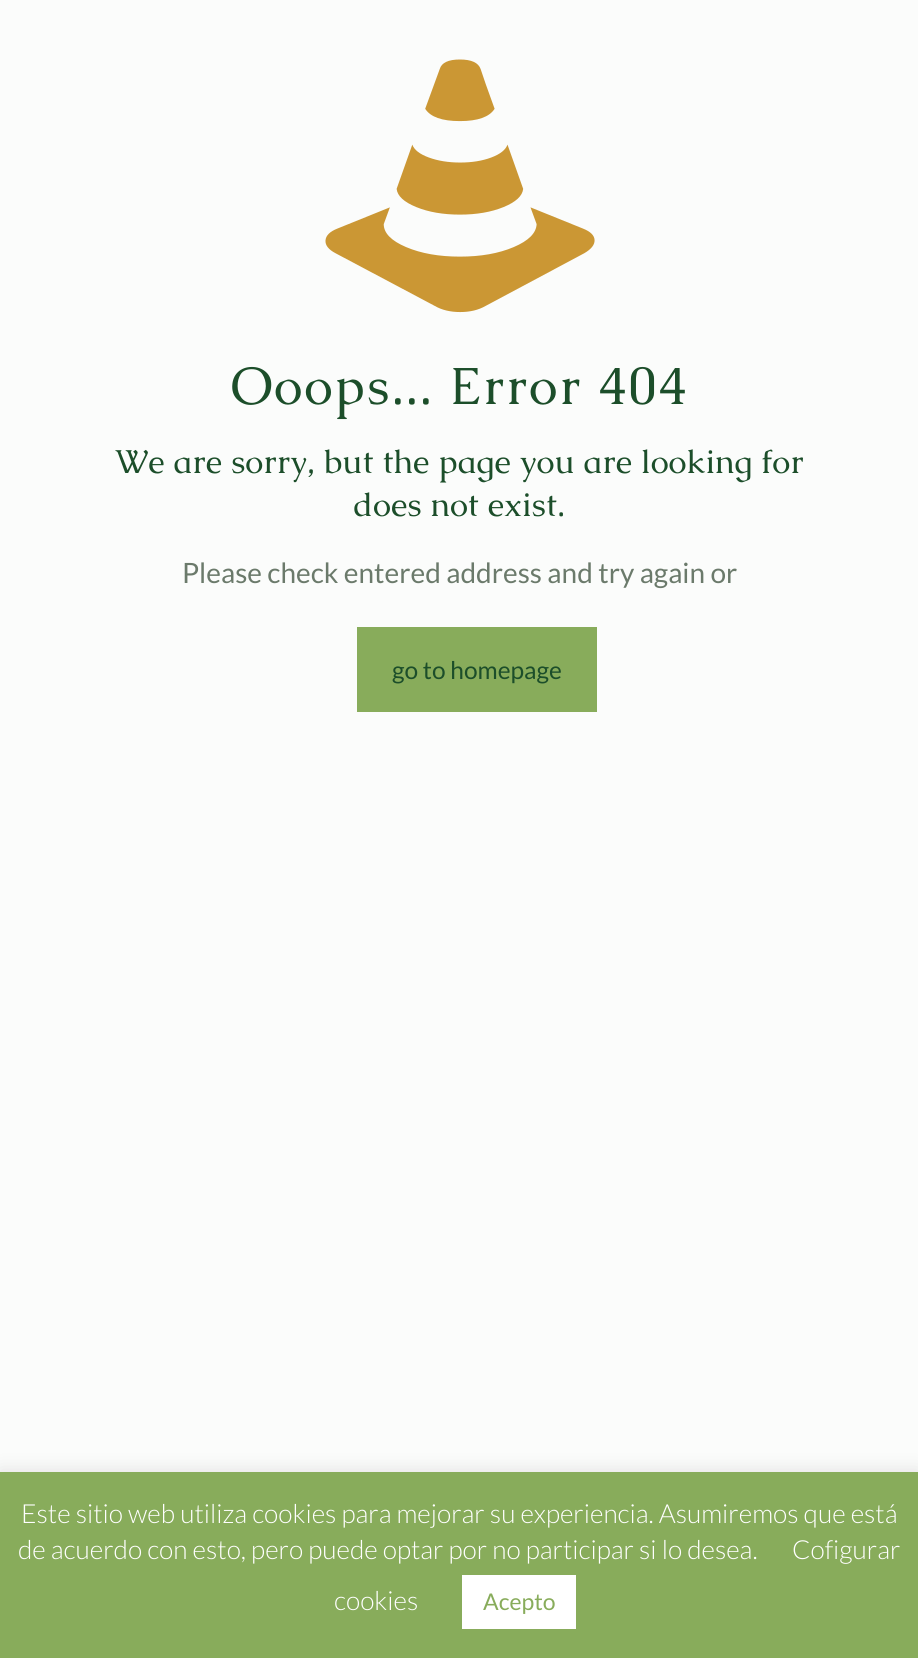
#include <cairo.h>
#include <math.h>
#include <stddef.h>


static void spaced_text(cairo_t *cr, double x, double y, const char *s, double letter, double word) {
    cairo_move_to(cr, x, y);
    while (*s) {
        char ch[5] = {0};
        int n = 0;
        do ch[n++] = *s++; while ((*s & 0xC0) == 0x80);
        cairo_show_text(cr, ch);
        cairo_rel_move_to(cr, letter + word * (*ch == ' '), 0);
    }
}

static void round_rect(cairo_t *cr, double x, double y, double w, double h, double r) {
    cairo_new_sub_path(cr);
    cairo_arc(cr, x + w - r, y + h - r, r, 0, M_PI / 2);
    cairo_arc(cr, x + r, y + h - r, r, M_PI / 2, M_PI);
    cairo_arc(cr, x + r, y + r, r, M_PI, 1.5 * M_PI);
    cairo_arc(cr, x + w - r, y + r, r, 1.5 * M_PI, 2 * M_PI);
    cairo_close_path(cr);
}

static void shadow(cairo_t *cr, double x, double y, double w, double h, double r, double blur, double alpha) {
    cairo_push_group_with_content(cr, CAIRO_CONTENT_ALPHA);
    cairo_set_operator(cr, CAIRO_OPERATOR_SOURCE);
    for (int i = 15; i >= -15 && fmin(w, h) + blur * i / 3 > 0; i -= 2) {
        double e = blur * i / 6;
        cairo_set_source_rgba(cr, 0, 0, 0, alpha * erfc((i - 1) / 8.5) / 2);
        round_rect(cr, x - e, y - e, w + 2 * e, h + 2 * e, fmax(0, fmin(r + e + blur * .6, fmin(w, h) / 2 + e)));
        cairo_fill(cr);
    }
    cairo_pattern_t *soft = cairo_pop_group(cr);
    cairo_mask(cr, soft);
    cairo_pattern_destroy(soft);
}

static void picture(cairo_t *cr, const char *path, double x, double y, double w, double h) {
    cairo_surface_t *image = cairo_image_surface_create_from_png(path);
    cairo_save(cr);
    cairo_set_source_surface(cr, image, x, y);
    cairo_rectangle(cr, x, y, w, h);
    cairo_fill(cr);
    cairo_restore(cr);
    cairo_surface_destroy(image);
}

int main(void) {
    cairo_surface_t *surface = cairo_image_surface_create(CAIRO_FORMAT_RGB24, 918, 1658);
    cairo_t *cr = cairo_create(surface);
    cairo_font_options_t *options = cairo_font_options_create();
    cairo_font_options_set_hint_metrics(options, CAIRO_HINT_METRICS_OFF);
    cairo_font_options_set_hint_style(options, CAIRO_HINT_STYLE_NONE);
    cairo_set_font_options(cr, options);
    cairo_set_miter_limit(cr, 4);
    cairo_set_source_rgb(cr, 0.984, 0.988, 0.984);
    cairo_paint(cr);
    picture(cr, "img1.png", 325, 59, 270, 254);
    cairo_select_font_face(cr, "Caudex", CAIRO_FONT_SLANT_NORMAL, CAIRO_FONT_WEIGHT_NORMAL);
    cairo_set_font_size(cr, 52.5);
    cairo_set_source_rgb(cr, 0.11, 0.306, 0.165);
    spaced_text(cr, 231, 404, "Ooops... Error 404", 1.75, 0);
    cairo_set_font_size(cr, 33.25);
    cairo_move_to(cr, 115, 473);
    cairo_show_text(cr, "We are sorry, but the page you are looking for");
    cairo_move_to(cr, 353, 516);
    cairo_show_text(cr, "does not exist.");
    cairo_select_font_face(cr, "Lato", CAIRO_FONT_SLANT_NORMAL, CAIRO_FONT_WEIGHT_NORMAL);
    cairo_set_font_size(cr, 28);
    cairo_set_source_rgb(cr, 0.42, 0.478, 0.42);
    cairo_move_to(cr, 182, 583);
    cairo_show_text(cr, "Please check entered address and try again or");
    cairo_set_source_rgb(cr, 0.533, 0.675, 0.357);
    cairo_rectangle(cr, 357, 627, 240, 85);
    cairo_fill(cr);
    cairo_set_font_size(cr, 24.5);
    cairo_set_source_rgb(cr, 0.11, 0.306, 0.165);
    cairo_move_to(cr, 392, 679);
    cairo_show_text(cr, "go to homepage");
    cairo_set_source_rgb(cr, 0.675, 0.671, 0.671);
    shadow(cr, 0, 1470, 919, 187, 0, 9, 0.3);
    cairo_set_source_rgb(cr, 0.533, 0.675, 0.357);
    cairo_rectangle(cr, 0, 1472, 918, 186);
    cairo_fill(cr);
    cairo_select_font_face(cr, "Lato Light", CAIRO_FONT_SLANT_NORMAL, CAIRO_FONT_WEIGHT_NORMAL);
    cairo_set_font_size(cr, 26.25);
    cairo_set_source_rgb(cr, 1, 1, 1);
    cairo_move_to(cr, 21, 1523);
    cairo_show_text(cr, "Este sitio web utiliza cookies para mejorar su experiencia. Asumiremos que está");
    cairo_move_to(cr, 18, 1559);
    cairo_show_text(cr, "de acuerdo con esto, pero puede optar por no participar si lo desea.");
    cairo_move_to(cr, 792, 1559);
    cairo_show_text(cr, "Cofigurar");
    cairo_move_to(cr, 334, 1610);
    cairo_show_text(cr, "cookies");
    cairo_rectangle(cr, 462, 1575, 114, 54);
    cairo_fill(cr);
    cairo_select_font_face(cr, "Lato", CAIRO_FONT_SLANT_NORMAL, CAIRO_FONT_WEIGHT_NORMAL);
    cairo_set_font_size(cr, 23);
    cairo_set_source_rgb(cr, 0.533, 0.675, 0.357);
    cairo_move_to(cr, 483, 1610);
    cairo_show_text(cr, "Acepto");
    cairo_surface_write_to_png(surface, "page.png");
    cairo_font_options_destroy(options);
    cairo_destroy(cr);
    cairo_surface_destroy(surface);
    return 0;
}
